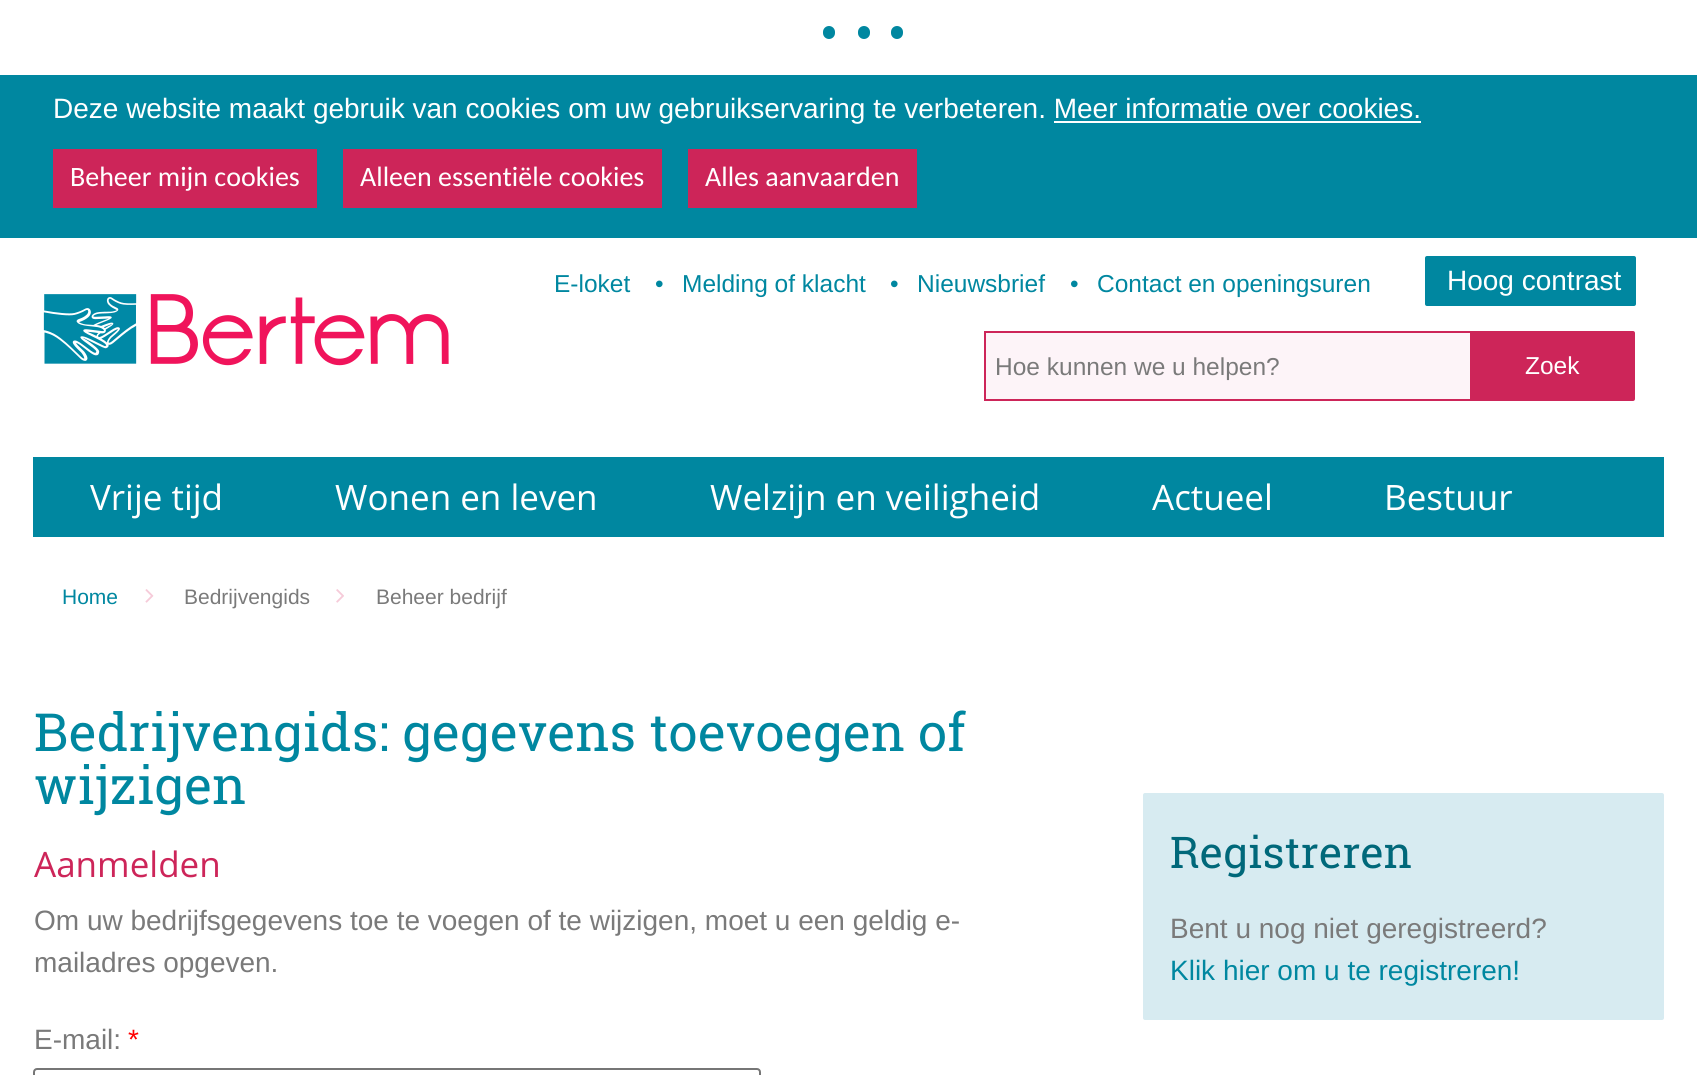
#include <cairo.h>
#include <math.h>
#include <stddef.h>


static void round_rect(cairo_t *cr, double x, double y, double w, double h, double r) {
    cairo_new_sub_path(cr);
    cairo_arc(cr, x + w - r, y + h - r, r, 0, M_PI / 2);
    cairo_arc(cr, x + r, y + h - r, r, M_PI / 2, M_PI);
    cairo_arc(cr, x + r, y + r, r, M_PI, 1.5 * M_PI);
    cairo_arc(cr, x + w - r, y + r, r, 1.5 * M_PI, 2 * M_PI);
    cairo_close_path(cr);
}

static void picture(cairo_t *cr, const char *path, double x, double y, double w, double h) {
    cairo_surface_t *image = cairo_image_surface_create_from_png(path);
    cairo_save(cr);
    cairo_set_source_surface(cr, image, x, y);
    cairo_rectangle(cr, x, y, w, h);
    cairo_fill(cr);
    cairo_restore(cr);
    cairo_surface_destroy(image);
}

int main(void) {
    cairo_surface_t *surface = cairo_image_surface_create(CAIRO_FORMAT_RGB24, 1697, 1075);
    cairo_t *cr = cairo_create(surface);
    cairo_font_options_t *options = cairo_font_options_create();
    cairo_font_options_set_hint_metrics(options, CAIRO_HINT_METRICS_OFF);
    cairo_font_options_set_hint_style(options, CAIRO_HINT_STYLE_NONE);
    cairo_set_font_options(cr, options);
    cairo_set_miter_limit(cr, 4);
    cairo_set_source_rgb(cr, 1, 1, 1);
    cairo_paint(cr);
    cairo_set_source_rgb(cr, 0, 0.529, 0.627);
    round_rect(cr, 823, 26, 12, 13, 6);
    cairo_fill(cr);
    round_rect(cr, 858, 26, 12, 13, 6);
    cairo_fill(cr);
    round_rect(cr, 891, 26, 12, 13, 6);
    cairo_fill(cr);
    cairo_rectangle(cr, 0, 75, 1697, 163);
    cairo_fill(cr);
    cairo_select_font_face(cr, "Liberation Sans", CAIRO_FONT_SLANT_NORMAL, CAIRO_FONT_WEIGHT_NORMAL);
    cairo_set_font_size(cr, 28);
    cairo_set_source_rgb(cr, 1, 1, 1);
    cairo_move_to(cr, 53, 118);
    cairo_show_text(cr, "Deze website maakt gebruik van cookies om uw gebruikservaring te verbeteren. Meer informatie over cookies.");
    cairo_rectangle(cr, 1054, 121, 367, 2);
    cairo_fill(cr);
    cairo_set_source_rgb(cr, 0.804, 0.145, 0.349);
    cairo_rectangle(cr, 53, 149, 264, 59);
    cairo_fill(cr);
    cairo_select_font_face(cr, "Carlito", CAIRO_FONT_SLANT_NORMAL, CAIRO_FONT_WEIGHT_NORMAL);
    cairo_set_source_rgb(cr, 1, 1, 1);
    cairo_move_to(cr, 70, 186);
    cairo_show_text(cr, "Beheer mijn cookies");
    cairo_set_source_rgb(cr, 0.804, 0.145, 0.349);
    cairo_rectangle(cr, 343, 149, 319, 59);
    cairo_fill(cr);
    cairo_set_source_rgb(cr, 1, 1, 1);
    cairo_move_to(cr, 360, 186);
    cairo_show_text(cr, "Alleen essentiële cookies");
    cairo_set_source_rgb(cr, 0.804, 0.145, 0.349);
    cairo_rectangle(cr, 688, 149, 229, 59);
    cairo_fill(cr);
    cairo_set_source_rgb(cr, 1, 1, 1);
    cairo_move_to(cr, 705, 186);
    cairo_show_text(cr, "Alles aanvaarden");
    cairo_select_font_face(cr, "Liberation Sans", CAIRO_FONT_SLANT_NORMAL, CAIRO_FONT_WEIGHT_NORMAL);
    cairo_set_font_size(cr, 24.5);
    cairo_set_source_rgb(cr, 0, 0.529, 0.627);
    cairo_move_to(cr, 554, 292);
    cairo_show_text(cr, "E-loket");
    cairo_move_to(cr, 655, 292);
    cairo_show_text(cr, "•");
    cairo_move_to(cr, 682, 292);
    cairo_show_text(cr, "Melding of klacht");
    cairo_move_to(cr, 890, 292);
    cairo_show_text(cr, "•");
    cairo_move_to(cr, 917, 292);
    cairo_show_text(cr, "Nieuwsbrief");
    cairo_move_to(cr, 1070, 292);
    cairo_show_text(cr, "•");
    cairo_move_to(cr, 1097, 292);
    cairo_show_text(cr, "Contact en openingsuren");
    round_rect(cr, 1425, 256, 211, 50, 2);
    cairo_fill(cr);
    cairo_set_font_size(cr, 28);
    cairo_set_source_rgb(cr, 1, 1, 1);
    cairo_move_to(cr, 1447, 290);
    cairo_show_text(cr, "Hoog contrast");
    picture(cr, "img1.png", 43, 294, 406, 72);
    cairo_set_source_rgb(cr, 0.992, 0.957, 0.969);
    cairo_rectangle(cr, 985, 332, 486, 68);
    cairo_fill_preserve(cr);
    cairo_set_source_rgb(cr, 0.804, 0.145, 0.349);
    cairo_stroke(cr);
    cairo_set_font_size(cr, 24.5);
    cairo_set_source_rgb(cr, 0.478, 0.478, 0.478);
    cairo_move_to(cr, 995, 375);
    cairo_show_text(cr, "Hoe kunnen we u helpen?");
    cairo_set_source_rgb(cr, 0.804, 0.145, 0.349);
    round_rect(cr, 1471, 332, 163, 68, 1);
    cairo_fill_preserve(cr);
    cairo_stroke(cr);
    cairo_set_source_rgb(cr, 1, 1, 1);
    cairo_move_to(cr, 1525, 374);
    cairo_show_text(cr, "Zoek");
    cairo_set_source_rgb(cr, 0, 0.529, 0.627);
    cairo_rectangle(cr, 33, 457, 1631, 80);
    cairo_fill(cr);
    cairo_select_font_face(cr, "Open Sans", CAIRO_FONT_SLANT_NORMAL, CAIRO_FONT_WEIGHT_NORMAL);
    cairo_set_font_size(cr, 35);
    cairo_set_source_rgb(cr, 1, 1, 1);
    cairo_move_to(cr, 90, 510);
    cairo_show_text(cr, "Vrije tijd");
    cairo_move_to(cr, 335, 510);
    cairo_show_text(cr, "Wonen en leven");
    cairo_move_to(cr, 710, 510);
    cairo_show_text(cr, "Welzijn en veiligheid");
    cairo_move_to(cr, 1152, 510);
    cairo_show_text(cr, "Actueel");
    cairo_move_to(cr, 1384, 510);
    cairo_show_text(cr, "Bestuur");
    cairo_select_font_face(cr, "Liberation Sans", CAIRO_FONT_SLANT_NORMAL, CAIRO_FONT_WEIGHT_NORMAL);
    cairo_set_font_size(cr, 21);
    cairo_set_source_rgb(cr, 0, 0.529, 0.627);
    cairo_move_to(cr, 62, 604);
    cairo_show_text(cr, "Home");
    picture(cr, "img2.png", 145, 589, 9, 14);
    cairo_set_source_rgb(cr, 0.478, 0.478, 0.478);
    cairo_move_to(cr, 184, 604);
    cairo_show_text(cr, "Bedrijvengids");
    picture(cr, "img3.png", 336, 589, 8, 14);
    cairo_move_to(cr, 376, 604);
    cairo_show_text(cr, "Beheer bedrijf");
    cairo_select_font_face(cr, "Roboto Slab", CAIRO_FONT_SLANT_NORMAL, CAIRO_FONT_WEIGHT_NORMAL);
    cairo_set_font_size(cr, 52.5);
    cairo_set_source_rgb(cr, 0, 0.529, 0.627);
    cairo_move_to(cr, 34, 751);
    cairo_show_text(cr, "Bedrijvengids: gegevens toevoegen of");
    cairo_move_to(cr, 34, 804);
    cairo_show_text(cr, "wijzigen");
    cairo_select_font_face(cr, "Open Sans", CAIRO_FONT_SLANT_NORMAL, CAIRO_FONT_WEIGHT_NORMAL);
    cairo_set_font_size(cr, 35);
    cairo_set_source_rgb(cr, 0.804, 0.145, 0.349);
    cairo_move_to(cr, 34, 877);
    cairo_show_text(cr, "Aanmelden");
    cairo_select_font_face(cr, "Liberation Sans", CAIRO_FONT_SLANT_NORMAL, CAIRO_FONT_WEIGHT_NORMAL);
    cairo_set_font_size(cr, 28);
    cairo_set_source_rgb(cr, 0.478, 0.478, 0.478);
    cairo_move_to(cr, 34, 930);
    cairo_show_text(cr, "Om uw bedrijfsgegevens toe te voegen of te wijzigen, moet u een geldig e-");
    cairo_move_to(cr, 34, 972);
    cairo_show_text(cr, "mailadres opgeven.");
    cairo_move_to(cr, 34, 1049);
    cairo_show_text(cr, "E-mail:");
    cairo_set_source_rgb(cr, 1, 0, 0);
    cairo_move_to(cr, 128, 1049);
    cairo_show_text(cr, "*");
    round_rect(cr, 34, 1069, 726, 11, 3);
    cairo_set_source_rgb(cr, 0.463, 0.463, 0.463);
    cairo_stroke(cr);
    cairo_set_source_rgb(cr, 0.843, 0.918, 0.945);
    round_rect(cr, 1143, 793, 521, 227, 2);
    cairo_fill(cr);
    cairo_select_font_face(cr, "Roboto Slab", CAIRO_FONT_SLANT_NORMAL, CAIRO_FONT_WEIGHT_NORMAL);
    cairo_set_font_size(cr, 43.75);
    cairo_set_source_rgb(cr, 0, 0.408, 0.478);
    cairo_move_to(cr, 1170, 868);
    cairo_show_text(cr, "Registreren");
    cairo_select_font_face(cr, "Liberation Sans", CAIRO_FONT_SLANT_NORMAL, CAIRO_FONT_WEIGHT_NORMAL);
    cairo_set_font_size(cr, 28);
    cairo_set_source_rgb(cr, 0.478, 0.478, 0.478);
    cairo_move_to(cr, 1170, 938);
    cairo_show_text(cr, "Bent u nog niet geregistreerd?");
    cairo_set_source_rgb(cr, 0, 0.529, 0.627);
    cairo_move_to(cr, 1170, 980);
    cairo_show_text(cr, "Klik hier om u te registreren!");
    cairo_surface_write_to_png(surface, "page.png");
    cairo_font_options_destroy(options);
    cairo_destroy(cr);
    cairo_surface_destroy(surface);
    return 0;
}
